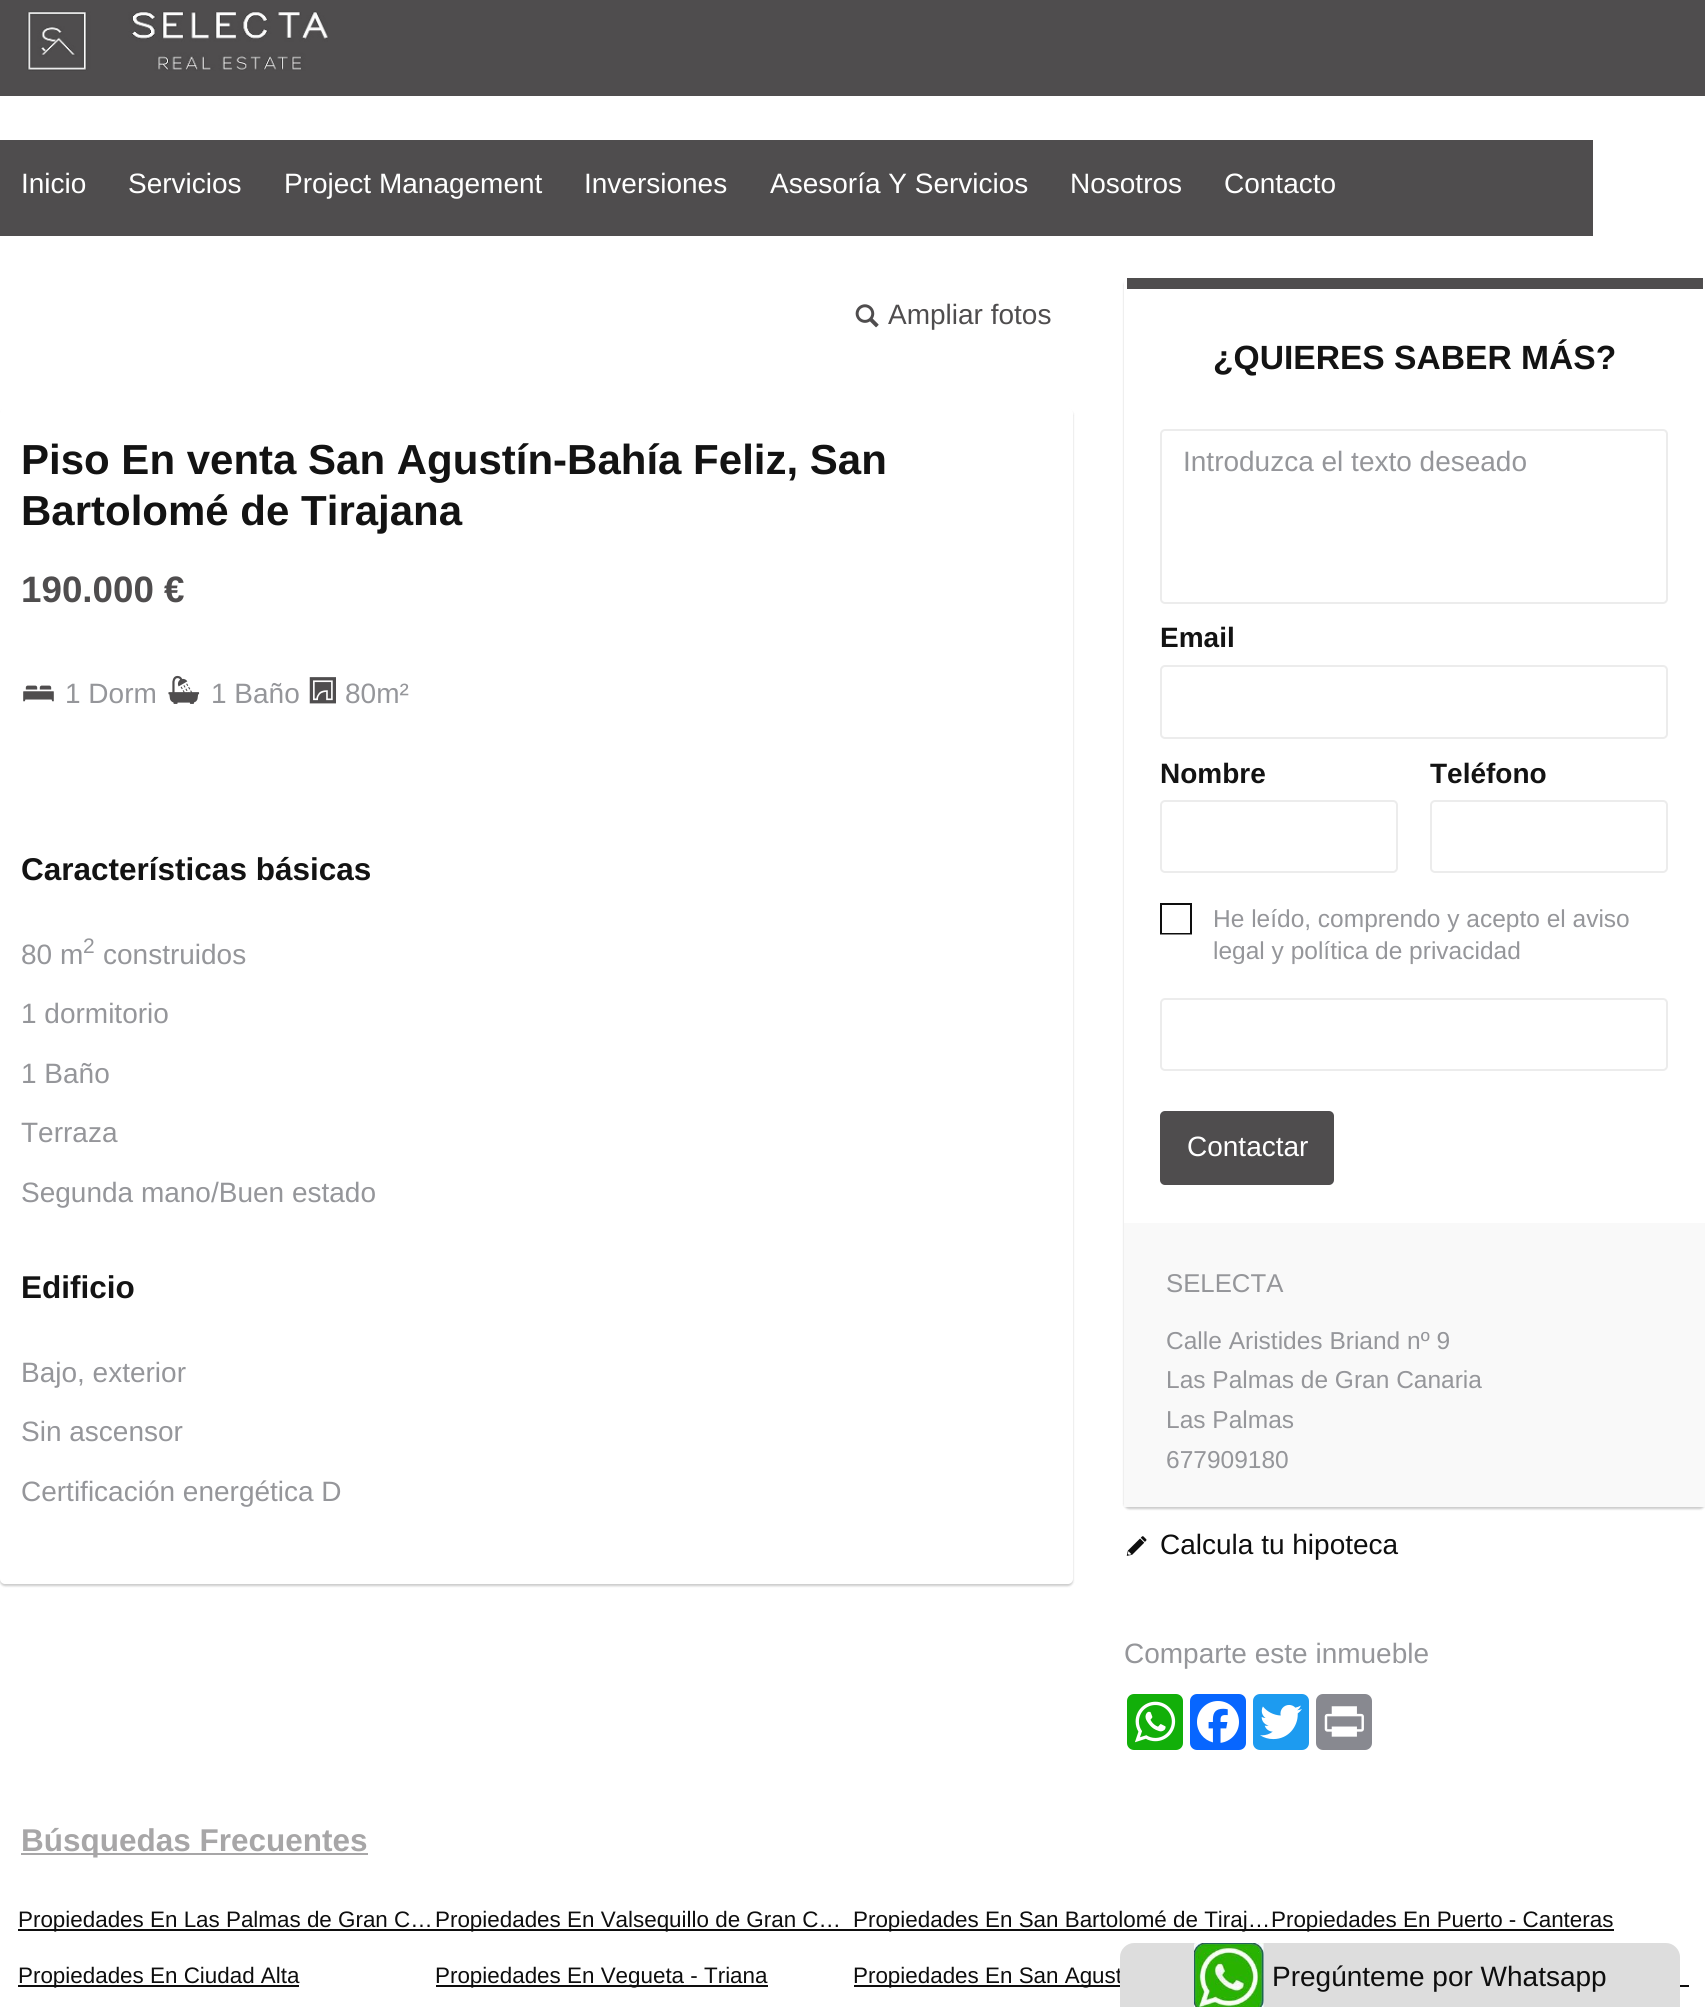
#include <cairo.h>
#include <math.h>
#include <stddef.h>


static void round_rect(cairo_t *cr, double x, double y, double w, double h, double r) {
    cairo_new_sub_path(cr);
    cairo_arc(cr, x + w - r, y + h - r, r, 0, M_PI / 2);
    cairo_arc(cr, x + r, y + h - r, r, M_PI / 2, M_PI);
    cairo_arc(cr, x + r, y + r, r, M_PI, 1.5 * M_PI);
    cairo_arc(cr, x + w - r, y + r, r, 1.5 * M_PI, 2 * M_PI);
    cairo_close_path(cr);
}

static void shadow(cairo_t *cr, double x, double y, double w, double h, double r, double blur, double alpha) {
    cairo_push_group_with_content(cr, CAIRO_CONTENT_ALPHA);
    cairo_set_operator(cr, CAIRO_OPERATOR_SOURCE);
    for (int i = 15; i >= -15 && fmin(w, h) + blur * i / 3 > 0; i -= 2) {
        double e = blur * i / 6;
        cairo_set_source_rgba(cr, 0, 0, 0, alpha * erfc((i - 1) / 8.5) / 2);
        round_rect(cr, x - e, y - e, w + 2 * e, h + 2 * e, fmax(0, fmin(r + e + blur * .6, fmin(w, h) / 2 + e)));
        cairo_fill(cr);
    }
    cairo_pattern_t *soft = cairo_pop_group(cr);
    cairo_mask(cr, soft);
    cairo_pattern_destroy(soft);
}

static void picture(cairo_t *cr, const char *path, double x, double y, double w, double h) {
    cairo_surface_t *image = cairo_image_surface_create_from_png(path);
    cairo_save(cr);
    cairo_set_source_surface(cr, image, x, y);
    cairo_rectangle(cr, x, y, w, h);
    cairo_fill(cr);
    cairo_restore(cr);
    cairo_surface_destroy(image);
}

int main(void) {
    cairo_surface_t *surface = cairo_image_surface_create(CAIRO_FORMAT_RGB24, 1705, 2007);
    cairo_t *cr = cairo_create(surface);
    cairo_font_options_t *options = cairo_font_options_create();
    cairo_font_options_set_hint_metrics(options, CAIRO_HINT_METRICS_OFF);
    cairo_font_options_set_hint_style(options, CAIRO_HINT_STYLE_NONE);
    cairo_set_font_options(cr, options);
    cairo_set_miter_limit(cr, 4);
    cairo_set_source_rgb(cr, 1, 1, 1);
    cairo_paint(cr);
    cairo_set_source_rgb(cr, 0.31, 0.302, 0.306);
    cairo_rectangle(cr, 0, 0, 1705, 96);
    cairo_fill(cr);
    picture(cr, "img1.png", 27, 11, 301, 60);
    cairo_rectangle(cr, 0, 140, 1593, 96);
    cairo_fill(cr);
    cairo_select_font_face(cr, "Liberation Sans", CAIRO_FONT_SLANT_NORMAL, CAIRO_FONT_WEIGHT_NORMAL);
    cairo_set_font_size(cr, 28);
    cairo_set_source_rgb(cr, 1, 1, 1);
    cairo_move_to(cr, 21, 193);
    cairo_show_text(cr, "Inicio");
    cairo_move_to(cr, 128, 193);
    cairo_show_text(cr, "Servicios");
    cairo_move_to(cr, 284, 193);
    cairo_show_text(cr, "Project Management");
    cairo_move_to(cr, 584, 193);
    cairo_show_text(cr, "Inversiones");
    cairo_move_to(cr, 770, 193);
    cairo_show_text(cr, "Asesoría Y Servicios");
    cairo_move_to(cr, 1070, 193);
    cairo_show_text(cr, "Nosotros");
    cairo_move_to(cr, 1224, 193);
    cairo_show_text(cr, "Contacto");
    picture(cr, "img2.png", 855, 304, 24, 24);
    cairo_set_source_rgb(cr, 0.31, 0.302, 0.306);
    cairo_move_to(cr, 888, 324);
    cairo_show_text(cr, "Ampliar fotos");
    cairo_set_source_rgb(cr, 0, 0, 0);
    shadow(cr, 0, 410, 1073, 1176, 5, 1, 0.2);
    cairo_set_source_rgb(cr, 1, 1, 1);
    round_rect(cr, 0, 408, 1073, 1176, 5);
    cairo_fill(cr);
    cairo_select_font_face(cr, "Liberation Sans", CAIRO_FONT_SLANT_NORMAL, CAIRO_FONT_WEIGHT_BOLD);
    cairo_set_font_size(cr, 42);
    cairo_set_source_rgb(cr, 0.078, 0.078, 0.078);
    cairo_move_to(cr, 21, 474);
    cairo_show_text(cr, "Piso En venta San Agustín-Bahía Feliz, San");
    cairo_move_to(cr, 21, 525);
    cairo_show_text(cr, "Bartolomé de Tirajana");
    cairo_set_font_size(cr, 36.75);
    cairo_set_source_rgb(cr, 0.31, 0.302, 0.306);
    cairo_move_to(cr, 21, 602);
    cairo_show_text(cr, "190.000 €");
    picture(cr, "img3.png", 23, 685, 31, 17);
    cairo_select_font_face(cr, "Liberation Sans", CAIRO_FONT_SLANT_NORMAL, CAIRO_FONT_WEIGHT_NORMAL);
    cairo_set_font_size(cr, 28);
    cairo_set_source_rgb(cr, 0.584, 0.588, 0.604);
    cairo_move_to(cr, 65, 703);
    cairo_show_text(cr, "1 Dorm");
    picture(cr, "img4.png", 168, 675, 32, 29);
    cairo_move_to(cr, 211, 703);
    cairo_show_text(cr, "1 Baño");
    picture(cr, "img5.png", 309, 677, 27, 27);
    cairo_move_to(cr, 345, 703);
    cairo_show_text(cr, "80m²");
    cairo_select_font_face(cr, "Liberation Sans", CAIRO_FONT_SLANT_NORMAL, CAIRO_FONT_WEIGHT_BOLD);
    cairo_set_font_size(cr, 31.5);
    cairo_set_source_rgb(cr, 0.078, 0.078, 0.078);
    cairo_move_to(cr, 21, 880);
    cairo_show_text(cr, "Características básicas");
    cairo_select_font_face(cr, "Liberation Sans", CAIRO_FONT_SLANT_NORMAL, CAIRO_FONT_WEIGHT_NORMAL);
    cairo_set_font_size(cr, 28);
    cairo_set_source_rgb(cr, 0.584, 0.588, 0.604);
    cairo_move_to(cr, 21, 964);
    cairo_show_text(cr, "80 m");
    cairo_set_font_size(cr, 21);
    cairo_move_to(cr, 83, 953);
    cairo_show_text(cr, "2");
    cairo_set_font_size(cr, 28);
    cairo_move_to(cr, 103, 964);
    cairo_show_text(cr, "construidos");
    cairo_move_to(cr, 21, 1023);
    cairo_show_text(cr, "1 dormitorio");
    cairo_move_to(cr, 21, 1083);
    cairo_show_text(cr, "1 Baño");
    cairo_move_to(cr, 21, 1142);
    cairo_show_text(cr, "Terraza");
    cairo_move_to(cr, 21, 1202);
    cairo_show_text(cr, "Segunda mano/Buen estado");
    cairo_select_font_face(cr, "Liberation Sans", CAIRO_FONT_SLANT_NORMAL, CAIRO_FONT_WEIGHT_BOLD);
    cairo_set_font_size(cr, 31.5);
    cairo_set_source_rgb(cr, 0.078, 0.078, 0.078);
    cairo_move_to(cr, 21, 1298);
    cairo_show_text(cr, "Edificio");
    cairo_select_font_face(cr, "Liberation Sans", CAIRO_FONT_SLANT_NORMAL, CAIRO_FONT_WEIGHT_NORMAL);
    cairo_set_font_size(cr, 28);
    cairo_set_source_rgb(cr, 0.584, 0.588, 0.604);
    cairo_move_to(cr, 21, 1382);
    cairo_show_text(cr, "Bajo, exterior");
    cairo_move_to(cr, 21, 1441);
    cairo_show_text(cr, "Sin ascensor");
    cairo_move_to(cr, 21, 1501);
    cairo_show_text(cr, "Certificación energética D");
    cairo_set_source_rgb(cr, 0, 0, 0);
    shadow(cr, 1124, 280, 581, 1229, 5, 1, 0.2);
    cairo_set_source_rgb(cr, 1, 1, 1);
    round_rect(cr, 1124, 278, 581, 1229, 5);
    cairo_fill(cr);
    cairo_set_source_rgb(cr, 0.31, 0.302, 0.306);
    cairo_rectangle(cr, 1127, 278, 576, 11);
    cairo_fill(cr);
    cairo_select_font_face(cr, "Liberation Sans", CAIRO_FONT_SLANT_NORMAL, CAIRO_FONT_WEIGHT_BOLD);
    cairo_set_font_size(cr, 33.6);
    cairo_set_source_rgb(cr, 0.078, 0.078, 0.078);
    cairo_move_to(cr, 1213, 369);
    cairo_show_text(cr, "¿QUIERES SABER MÁS?");
    round_rect(cr, 1161, 430, 506, 173, 4);
    cairo_set_source_rgb(cr, 0.922, 0.922, 0.925);
    cairo_stroke(cr);
    cairo_select_font_face(cr, "Liberation Sans", CAIRO_FONT_SLANT_NORMAL, CAIRO_FONT_WEIGHT_NORMAL);
    cairo_set_font_size(cr, 28);
    cairo_set_source_rgb(cr, 0.584, 0.588, 0.604);
    cairo_move_to(cr, 1183, 471);
    cairo_show_text(cr, "Introduzca el texto deseado");
    cairo_select_font_face(cr, "Liberation Sans", CAIRO_FONT_SLANT_NORMAL, CAIRO_FONT_WEIGHT_BOLD);
    cairo_set_source_rgb(cr, 0.078, 0.078, 0.078);
    cairo_move_to(cr, 1160, 647);
    cairo_show_text(cr, "Email");
    round_rect(cr, 1161, 666, 506, 72, 4);
    cairo_set_source_rgb(cr, 0.922, 0.922, 0.925);
    cairo_stroke(cr);
    cairo_set_source_rgb(cr, 0.078, 0.078, 0.078);
    cairo_move_to(cr, 1160, 783);
    cairo_show_text(cr, "Nombre");
    round_rect(cr, 1161, 801, 236, 71, 4);
    cairo_set_source_rgb(cr, 0.922, 0.922, 0.925);
    cairo_stroke(cr);
    cairo_set_source_rgb(cr, 0.078, 0.078, 0.078);
    cairo_move_to(cr, 1430, 783);
    cairo_show_text(cr, "Teléfono");
    round_rect(cr, 1431, 801, 236, 71, 4);
    cairo_set_source_rgb(cr, 0.922, 0.922, 0.925);
    cairo_stroke(cr);
    cairo_set_source_rgb(cr, 0.055, 0.055, 0.055);
    cairo_new_path(cr);
    cairo_move_to(cr, 1160, 934.5);
    cairo_line_to(cr, 1160, 903);
    cairo_line_to(cr, 1192, 903);
    cairo_line_to(cr, 1192, 934.5);
    cairo_close_path(cr);
    cairo_move_to(cr, 1162, 933);
    cairo_line_to(cr, 1190, 933);
    cairo_line_to(cr, 1190, 905);
    cairo_line_to(cr, 1162, 905);
    cairo_close_path(cr);
    cairo_fill(cr);
    cairo_select_font_face(cr, "Liberation Sans", CAIRO_FONT_SLANT_NORMAL, CAIRO_FONT_WEIGHT_NORMAL);
    cairo_set_font_size(cr, 24.5);
    cairo_set_source_rgb(cr, 0.584, 0.588, 0.604);
    cairo_move_to(cr, 1213, 927);
    cairo_show_text(cr, "He leído, comprendo y acepto el aviso");
    cairo_move_to(cr, 1213, 959);
    cairo_show_text(cr, "legal y política de privacidad");
    round_rect(cr, 1161, 999, 506, 71, 4);
    cairo_set_source_rgb(cr, 0.922, 0.922, 0.925);
    cairo_stroke(cr);
    cairo_set_source_rgb(cr, 0.31, 0.302, 0.306);
    round_rect(cr, 1160, 1111, 174, 74, 5);
    cairo_fill(cr);
    cairo_set_font_size(cr, 28);
    cairo_set_source_rgb(cr, 1, 1, 1);
    cairo_move_to(cr, 1187, 1156);
    cairo_show_text(cr, "Contactar");
    cairo_set_source_rgb(cr, 0.976, 0.976, 0.976);
    cairo_rectangle(cr, 1124, 1223, 581, 284);
    cairo_fill(cr);
    cairo_set_font_size(cr, 25.75);
    cairo_set_source_rgb(cr, 0.584, 0.588, 0.604);
    cairo_move_to(cr, 1166, 1292);
    cairo_show_text(cr, "SELECTA");
    cairo_set_font_size(cr, 24.5);
    cairo_move_to(cr, 1166, 1349);
    cairo_show_text(cr, "Calle Aristides Briand nº 9");
    cairo_move_to(cr, 1166, 1388);
    cairo_show_text(cr, "Las Palmas de Gran Canaria");
    cairo_move_to(cr, 1166, 1428);
    cairo_show_text(cr, "Las Palmas");
    cairo_move_to(cr, 1166, 1468);
    cairo_show_text(cr, "677909180");
    picture(cr, "img6.png", 1126, 1536, 21, 20);
    cairo_set_font_size(cr, 28);
    cairo_set_source_rgb(cr, 0.055, 0.055, 0.055);
    cairo_move_to(cr, 1160, 1554);
    cairo_show_text(cr, "Calcula tu hipoteca");
    cairo_set_source_rgb(cr, 0.584, 0.588, 0.604);
    cairo_move_to(cr, 1124, 1663);
    cairo_show_text(cr, "Comparte este inmueble");
    cairo_set_source_rgb(cr, 0.071, 0.686, 0.039);
    round_rect(cr, 1127, 1694, 56, 56, 7);
    cairo_fill(cr);
    picture(cr, "img7.png", 1135, 1701, 41, 42);
    cairo_set_source_rgb(cr, 0.031, 0.4, 1);
    round_rect(cr, 1190, 1694, 56, 56, 7);
    cairo_fill(cr);
    picture(cr, "img8.png", 1197, 1701, 42, 42);
    cairo_set_source_rgb(cr, 0.114, 0.608, 0.941);
    round_rect(cr, 1253, 1694, 56, 56, 7);
    cairo_fill(cr);
    picture(cr, "img9.png", 1260, 1704, 42, 36);
    cairo_set_source_rgb(cr, 0.533, 0.537, 0.565);
    round_rect(cr, 1316, 1694, 56, 56, 7);
    cairo_fill(cr);
    picture(cr, "img10.png", 1324, 1706, 40, 31);
    cairo_set_source_rgb(cr, 0.655, 0.651, 0.655);
    cairo_rectangle(cr, 21, 1853, 347, 2);
    cairo_fill(cr);
    cairo_select_font_face(cr, "Liberation Sans", CAIRO_FONT_SLANT_NORMAL, CAIRO_FONT_WEIGHT_BOLD);
    cairo_set_font_size(cr, 31.5);
    cairo_move_to(cr, 21, 1851);
    cairo_show_text(cr, "Búsquedas Frecuentes");
    cairo_set_source_rgb(cr, 0.055, 0.055, 0.055);
    cairo_rectangle(cr, 18, 1929, 1596, 2);
    cairo_fill(cr);
    cairo_select_font_face(cr, "Liberation Sans", CAIRO_FONT_SLANT_NORMAL, CAIRO_FONT_WEIGHT_NORMAL);
    cairo_set_font_size(cr, 22.4);
    cairo_move_to(cr, 18, 1927);
    cairo_show_text(cr, "Propiedades En Las Palmas de Gran C…");
    cairo_move_to(cr, 435, 1927);
    cairo_show_text(cr, "Propiedades En Valsequillo de Gran C…");
    cairo_move_to(cr, 853, 1927);
    cairo_show_text(cr, "Propiedades En San Bartolomé de Tiraj…");
    cairo_move_to(cr, 1271, 1927);
    cairo_show_text(cr, "Propiedades En Puerto - Canteras");
    cairo_rectangle(cr, 18, 1985, 281, 2);
    cairo_fill(cr);
    cairo_move_to(cr, 18, 1983);
    cairo_show_text(cr, "Propiedades En Ciudad Alta");
    cairo_rectangle(cr, 436, 1985, 332, 2);
    cairo_fill(cr);
    cairo_move_to(cr, 435, 1983);
    cairo_show_text(cr, "Propiedades En Vegueta - Triana");
    cairo_rectangle(cr, 854, 1985, 266, 2);
    cairo_fill(cr);
    cairo_move_to(cr, 853, 1983);
    cairo_show_text(cr, "Propiedades En San Agust");
    cairo_rectangle(cr, 1680, 1985, 9, 2);
    cairo_fill(cr);
    cairo_set_source_rgb(cr, 0.867, 0.867, 0.867);
    cairo_new_path(cr);
    cairo_move_to(cr, 1134, 1943);
    cairo_line_to(cr, 1666, 1943);
    cairo_curve_to(cr, 1673.5, 1943, 1680, 1949.5, 1680, 1957);
    cairo_line_to(cr, 1680, 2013);
    cairo_line_to(cr, 1120, 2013);
    cairo_line_to(cr, 1120, 1957);
    cairo_curve_to(cr, 1120, 1949.5, 1126.5, 1943, 1134, 1943);
    cairo_close_path(cr);
    cairo_fill(cr);
    picture(cr, "img11.png", 1194, 1943, 70, 64);
    cairo_set_font_size(cr, 28);
    cairo_set_source_rgb(cr, 0.055, 0.055, 0.055);
    cairo_move_to(cr, 1272, 1986);
    cairo_show_text(cr, "Pregúnteme por Whatsapp");
    cairo_surface_write_to_png(surface, "page.png");
    cairo_font_options_destroy(options);
    cairo_destroy(cr);
    cairo_surface_destroy(surface);
    return 0;
}
